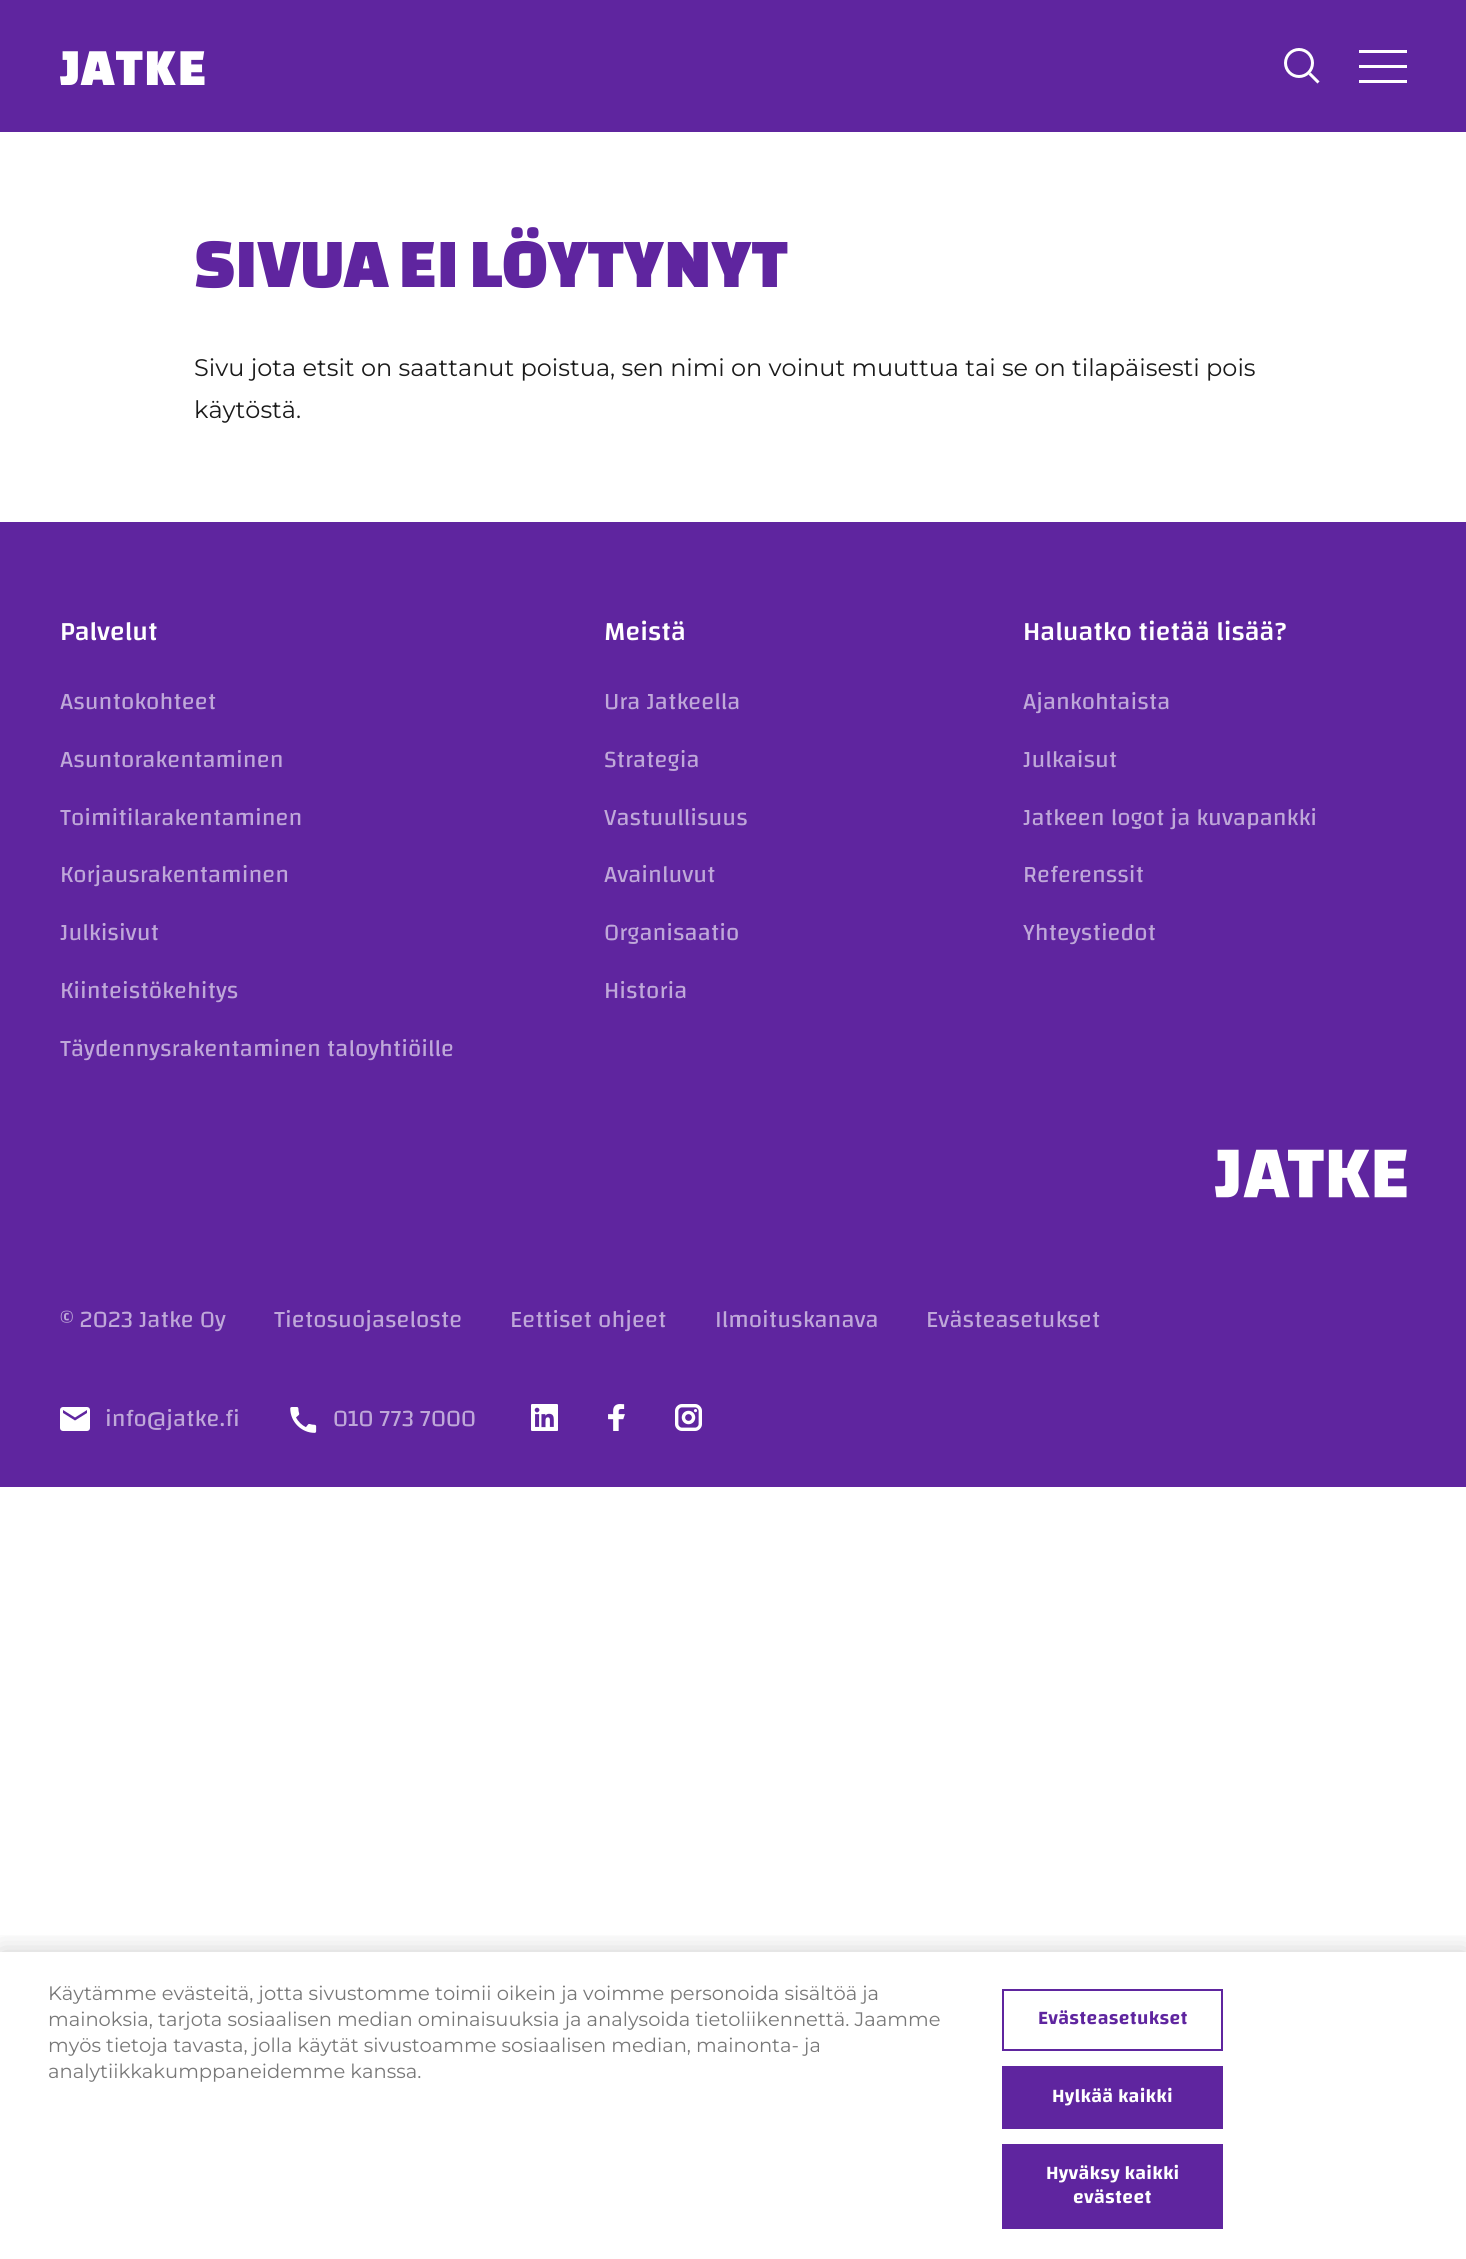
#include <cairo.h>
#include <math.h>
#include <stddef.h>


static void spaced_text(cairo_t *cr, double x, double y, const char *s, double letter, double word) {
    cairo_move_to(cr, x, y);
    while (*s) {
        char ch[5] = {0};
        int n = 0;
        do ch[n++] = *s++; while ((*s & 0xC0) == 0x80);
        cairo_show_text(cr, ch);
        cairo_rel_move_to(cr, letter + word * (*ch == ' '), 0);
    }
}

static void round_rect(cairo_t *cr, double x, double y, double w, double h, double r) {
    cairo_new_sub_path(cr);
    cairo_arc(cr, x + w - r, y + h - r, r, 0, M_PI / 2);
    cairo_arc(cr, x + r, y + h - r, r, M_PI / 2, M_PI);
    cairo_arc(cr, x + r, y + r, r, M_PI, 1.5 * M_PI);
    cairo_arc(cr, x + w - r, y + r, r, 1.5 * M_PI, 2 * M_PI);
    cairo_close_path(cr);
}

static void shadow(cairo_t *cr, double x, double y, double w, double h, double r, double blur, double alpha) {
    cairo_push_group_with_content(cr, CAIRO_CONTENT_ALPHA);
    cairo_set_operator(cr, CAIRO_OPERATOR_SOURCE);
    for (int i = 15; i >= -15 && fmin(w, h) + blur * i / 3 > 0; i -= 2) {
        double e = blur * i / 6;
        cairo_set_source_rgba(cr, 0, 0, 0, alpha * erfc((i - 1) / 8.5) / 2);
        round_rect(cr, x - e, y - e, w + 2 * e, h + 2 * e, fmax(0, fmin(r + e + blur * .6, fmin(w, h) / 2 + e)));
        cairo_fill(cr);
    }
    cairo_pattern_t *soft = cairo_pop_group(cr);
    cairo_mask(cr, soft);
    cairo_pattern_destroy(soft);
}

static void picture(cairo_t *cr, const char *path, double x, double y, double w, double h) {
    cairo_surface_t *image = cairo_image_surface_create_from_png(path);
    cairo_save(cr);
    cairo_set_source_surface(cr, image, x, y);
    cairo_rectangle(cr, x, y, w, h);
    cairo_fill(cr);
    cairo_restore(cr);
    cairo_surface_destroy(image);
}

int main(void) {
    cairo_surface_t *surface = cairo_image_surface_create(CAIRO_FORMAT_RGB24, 1466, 2259);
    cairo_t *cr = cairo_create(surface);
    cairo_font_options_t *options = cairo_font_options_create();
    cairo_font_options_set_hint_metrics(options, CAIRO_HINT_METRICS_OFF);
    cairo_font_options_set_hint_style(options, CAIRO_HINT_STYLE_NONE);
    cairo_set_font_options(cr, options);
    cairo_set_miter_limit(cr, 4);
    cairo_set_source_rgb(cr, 1, 1, 1);
    cairo_paint(cr);
    cairo_set_source_rgb(cr, 0.373, 0.145, 0.624);
    cairo_rectangle(cr, 0, 0, 1466, 132);
    cairo_fill(cr);
    cairo_select_font_face(cr, "Changa One", CAIRO_FONT_SLANT_NORMAL, CAIRO_FONT_WEIGHT_NORMAL);
    cairo_set_font_size(cr, 54);
    cairo_set_source_rgb(cr, 1, 1, 1);
    spaced_text(cr, 60, 85, "JATKE", 1.5, 0);
    cairo_new_path(cr);
    cairo_arc(cr, 1299, 63, 13.5, 0, 2 * M_PI);
    cairo_set_line_width(cr, 3);
    cairo_stroke(cr);
    cairo_new_path(cr);
    cairo_move_to(cr, 1318.5, 82.5);
    cairo_line_to(cr, 1309.5, 73.5);
    cairo_stroke(cr);
    cairo_rectangle(cr, 1359, 50, 48, 3);
    cairo_fill(cr);
    cairo_rectangle(cr, 1359, 65, 48, 3);
    cairo_fill(cr);
    cairo_rectangle(cr, 1359, 80, 48, 3);
    cairo_fill(cr);
    cairo_set_font_size(cr, 72);
    cairo_set_source_rgb(cr, 0.373, 0.145, 0.624);
    cairo_move_to(cr, 194, 287);
    cairo_show_text(cr, "SIVUA EI LÖYTYNYT");
    cairo_select_font_face(cr, "Montserrat Thin", CAIRO_FONT_SLANT_NORMAL, CAIRO_FONT_WEIGHT_NORMAL);
    cairo_set_font_size(cr, 24);
    cairo_set_source_rgb(cr, 0.106, 0.106, 0.106);
    cairo_move_to(cr, 194, 376);
    cairo_show_text(cr, "Sivu jota etsit on saattanut poistua, sen nimi on voinut muuttua tai se on tilapäisesti pois");
    cairo_move_to(cr, 194, 418);
    cairo_show_text(cr, "käytöstä.");
    cairo_set_source_rgb(cr, 0.373, 0.145, 0.624);
    cairo_rectangle(cr, 0, 522, 1466, 965);
    cairo_fill(cr);
    cairo_select_font_face(cr, "Changa Medium", CAIRO_FONT_SLANT_NORMAL, CAIRO_FONT_WEIGHT_NORMAL);
    cairo_set_font_size(cr, 27);
    cairo_set_source_rgb(cr, 1, 1, 1);
    cairo_move_to(cr, 60, 640);
    cairo_show_text(cr, "Palvelut");
    cairo_select_font_face(cr, "Changa", CAIRO_FONT_SLANT_NORMAL, CAIRO_FONT_WEIGHT_NORMAL);
    cairo_set_font_size(cr, 24);
    cairo_set_source_rgb(cr, 0.749, 0.659, 0.851);
    cairo_move_to(cr, 60, 709);
    cairo_show_text(cr, "Asuntokohteet");
    cairo_move_to(cr, 60, 767);
    cairo_show_text(cr, "Asuntorakentaminen");
    cairo_move_to(cr, 60, 825);
    cairo_show_text(cr, "Toimitilarakentaminen");
    cairo_move_to(cr, 60, 882);
    cairo_show_text(cr, "Korjausrakentaminen");
    cairo_move_to(cr, 60, 940);
    cairo_show_text(cr, "Julkisivut");
    cairo_move_to(cr, 60, 998);
    cairo_show_text(cr, "Kiinteistökehitys");
    cairo_move_to(cr, 60, 1056);
    cairo_show_text(cr, "Täydennysrakentaminen taloyhtiöille");
    cairo_select_font_face(cr, "Changa Medium", CAIRO_FONT_SLANT_NORMAL, CAIRO_FONT_WEIGHT_NORMAL);
    cairo_set_font_size(cr, 27);
    cairo_set_source_rgb(cr, 1, 1, 1);
    cairo_move_to(cr, 604, 640);
    cairo_show_text(cr, "Meistä");
    cairo_select_font_face(cr, "Changa", CAIRO_FONT_SLANT_NORMAL, CAIRO_FONT_WEIGHT_NORMAL);
    cairo_set_font_size(cr, 24);
    cairo_set_source_rgb(cr, 0.749, 0.659, 0.851);
    cairo_move_to(cr, 604, 709);
    cairo_show_text(cr, "Ura Jatkeella");
    cairo_move_to(cr, 604, 767);
    cairo_show_text(cr, "Strategia");
    cairo_move_to(cr, 604, 825);
    cairo_show_text(cr, "Vastuullisuus");
    cairo_move_to(cr, 604, 882);
    cairo_show_text(cr, "Avainluvut");
    cairo_move_to(cr, 604, 940);
    cairo_show_text(cr, "Organisaatio");
    cairo_move_to(cr, 604, 998);
    cairo_show_text(cr, "Historia");
    cairo_select_font_face(cr, "Changa Medium", CAIRO_FONT_SLANT_NORMAL, CAIRO_FONT_WEIGHT_NORMAL);
    cairo_set_font_size(cr, 27);
    cairo_set_source_rgb(cr, 1, 1, 1);
    cairo_move_to(cr, 1023, 640);
    cairo_show_text(cr, "Haluatko tietää lisää?");
    cairo_select_font_face(cr, "Changa", CAIRO_FONT_SLANT_NORMAL, CAIRO_FONT_WEIGHT_NORMAL);
    cairo_set_font_size(cr, 24);
    cairo_set_source_rgb(cr, 0.749, 0.659, 0.851);
    cairo_move_to(cr, 1023, 709);
    cairo_show_text(cr, "Ajankohtaista");
    cairo_move_to(cr, 1023, 767);
    cairo_show_text(cr, "Julkaisut");
    cairo_move_to(cr, 1023, 825);
    cairo_show_text(cr, "Jatkeen logot ja kuvapankki");
    cairo_move_to(cr, 1023, 882);
    cairo_show_text(cr, "Referenssit");
    cairo_move_to(cr, 1023, 940);
    cairo_show_text(cr, "Yhteystiedot");
    picture(cr, "img1.png", 1215, 1149, 192, 49);
    cairo_move_to(cr, 60, 1327);
    cairo_show_text(cr, "© 2023 Jatke Oy");
    cairo_move_to(cr, 274, 1327);
    cairo_show_text(cr, "Tietosuojaseloste");
    cairo_move_to(cr, 510, 1327);
    cairo_show_text(cr, "Eettiset ohjeet");
    cairo_move_to(cr, 715, 1327);
    cairo_show_text(cr, "Ilmoituskanava");
    cairo_move_to(cr, 926, 1327);
    cairo_show_text(cr, "Evästeasetukset");
    picture(cr, "img2.png", 60, 1407, 30, 24);
    cairo_move_to(cr, 105, 1426);
    cairo_show_text(cr, "info@jatke.fi");
    picture(cr, "img3.png", 290, 1407, 27, 26);
    cairo_move_to(cr, 333, 1426);
    cairo_show_text(cr, "010 773 7000");
    picture(cr, "img4.png", 531, 1404, 27, 27);
    picture(cr, "img5.png", 608, 1404, 17, 27);
    picture(cr, "img6.png", 675, 1404, 27, 27);
    cairo_save(cr);
    cairo_rectangle(cr, 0, 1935, 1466, 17);
    cairo_clip(cr);
    cairo_set_source_rgb(cr, 0, 0, 0);
    shadow(cr, 0, 1952, 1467, 307, 0, 13.5, 0.2);
    cairo_restore(cr);
    cairo_select_font_face(cr, "Montserrat Thin", CAIRO_FONT_SLANT_NORMAL, CAIRO_FONT_WEIGHT_NORMAL);
    cairo_set_font_size(cr, 19.5);
    cairo_set_source_rgb(cr, 0.471, 0.471, 0.471);
    cairo_move_to(cr, 48, 2000);
    cairo_show_text(cr, "Käytämme evästeitä, jotta sivustomme toimii oikein ja voimme personoida sisältöä ja");
    cairo_move_to(cr, 48, 2026);
    cairo_show_text(cr, "mainoksia, tarjota sosiaalisen median ominaisuuksia ja analysoida tietoliikennettä. Jaamme");
    cairo_move_to(cr, 48, 2052);
    cairo_show_text(cr, "myös tietoja tavasta, jolla käytät sivustoamme sosiaalisen median, mainonta- ja");
    cairo_move_to(cr, 48, 2078);
    cairo_show_text(cr, "analytiikkakumppaneidemme kanssa.");
    cairo_rectangle(cr, 1003, 1990, 219, 60);
    cairo_set_source_rgb(cr, 0.373, 0.145, 0.624);
    cairo_set_line_width(cr, 2);
    cairo_stroke(cr);
    cairo_select_font_face(cr, "Changa SemiBold", CAIRO_FONT_SLANT_NORMAL, CAIRO_FONT_WEIGHT_NORMAL);
    spaced_text(cr, 1038, 2024, "Evästeasetukset", 0.25, 0);
    cairo_rectangle(cr, 1002, 2066, 221, 63);
    cairo_fill(cr);
    cairo_set_source_rgb(cr, 1, 1, 1);
    spaced_text(cr, 1052, 2102, "Hylkää kaikki", 0.25, 0);
    cairo_set_source_rgb(cr, 0.373, 0.145, 0.624);
    cairo_rectangle(cr, 1002, 2144, 221, 85);
    cairo_fill(cr);
    cairo_set_source_rgb(cr, 1, 1, 1);
    spaced_text(cr, 1046, 2179, "Hyväksy kaikki", 0.25, 0);
    spaced_text(cr, 1073, 2203, "evästeet", 0.25, 0);
    cairo_surface_write_to_png(surface, "page.png");
    cairo_font_options_destroy(options);
    cairo_destroy(cr);
    cairo_surface_destroy(surface);
    return 0;
}
